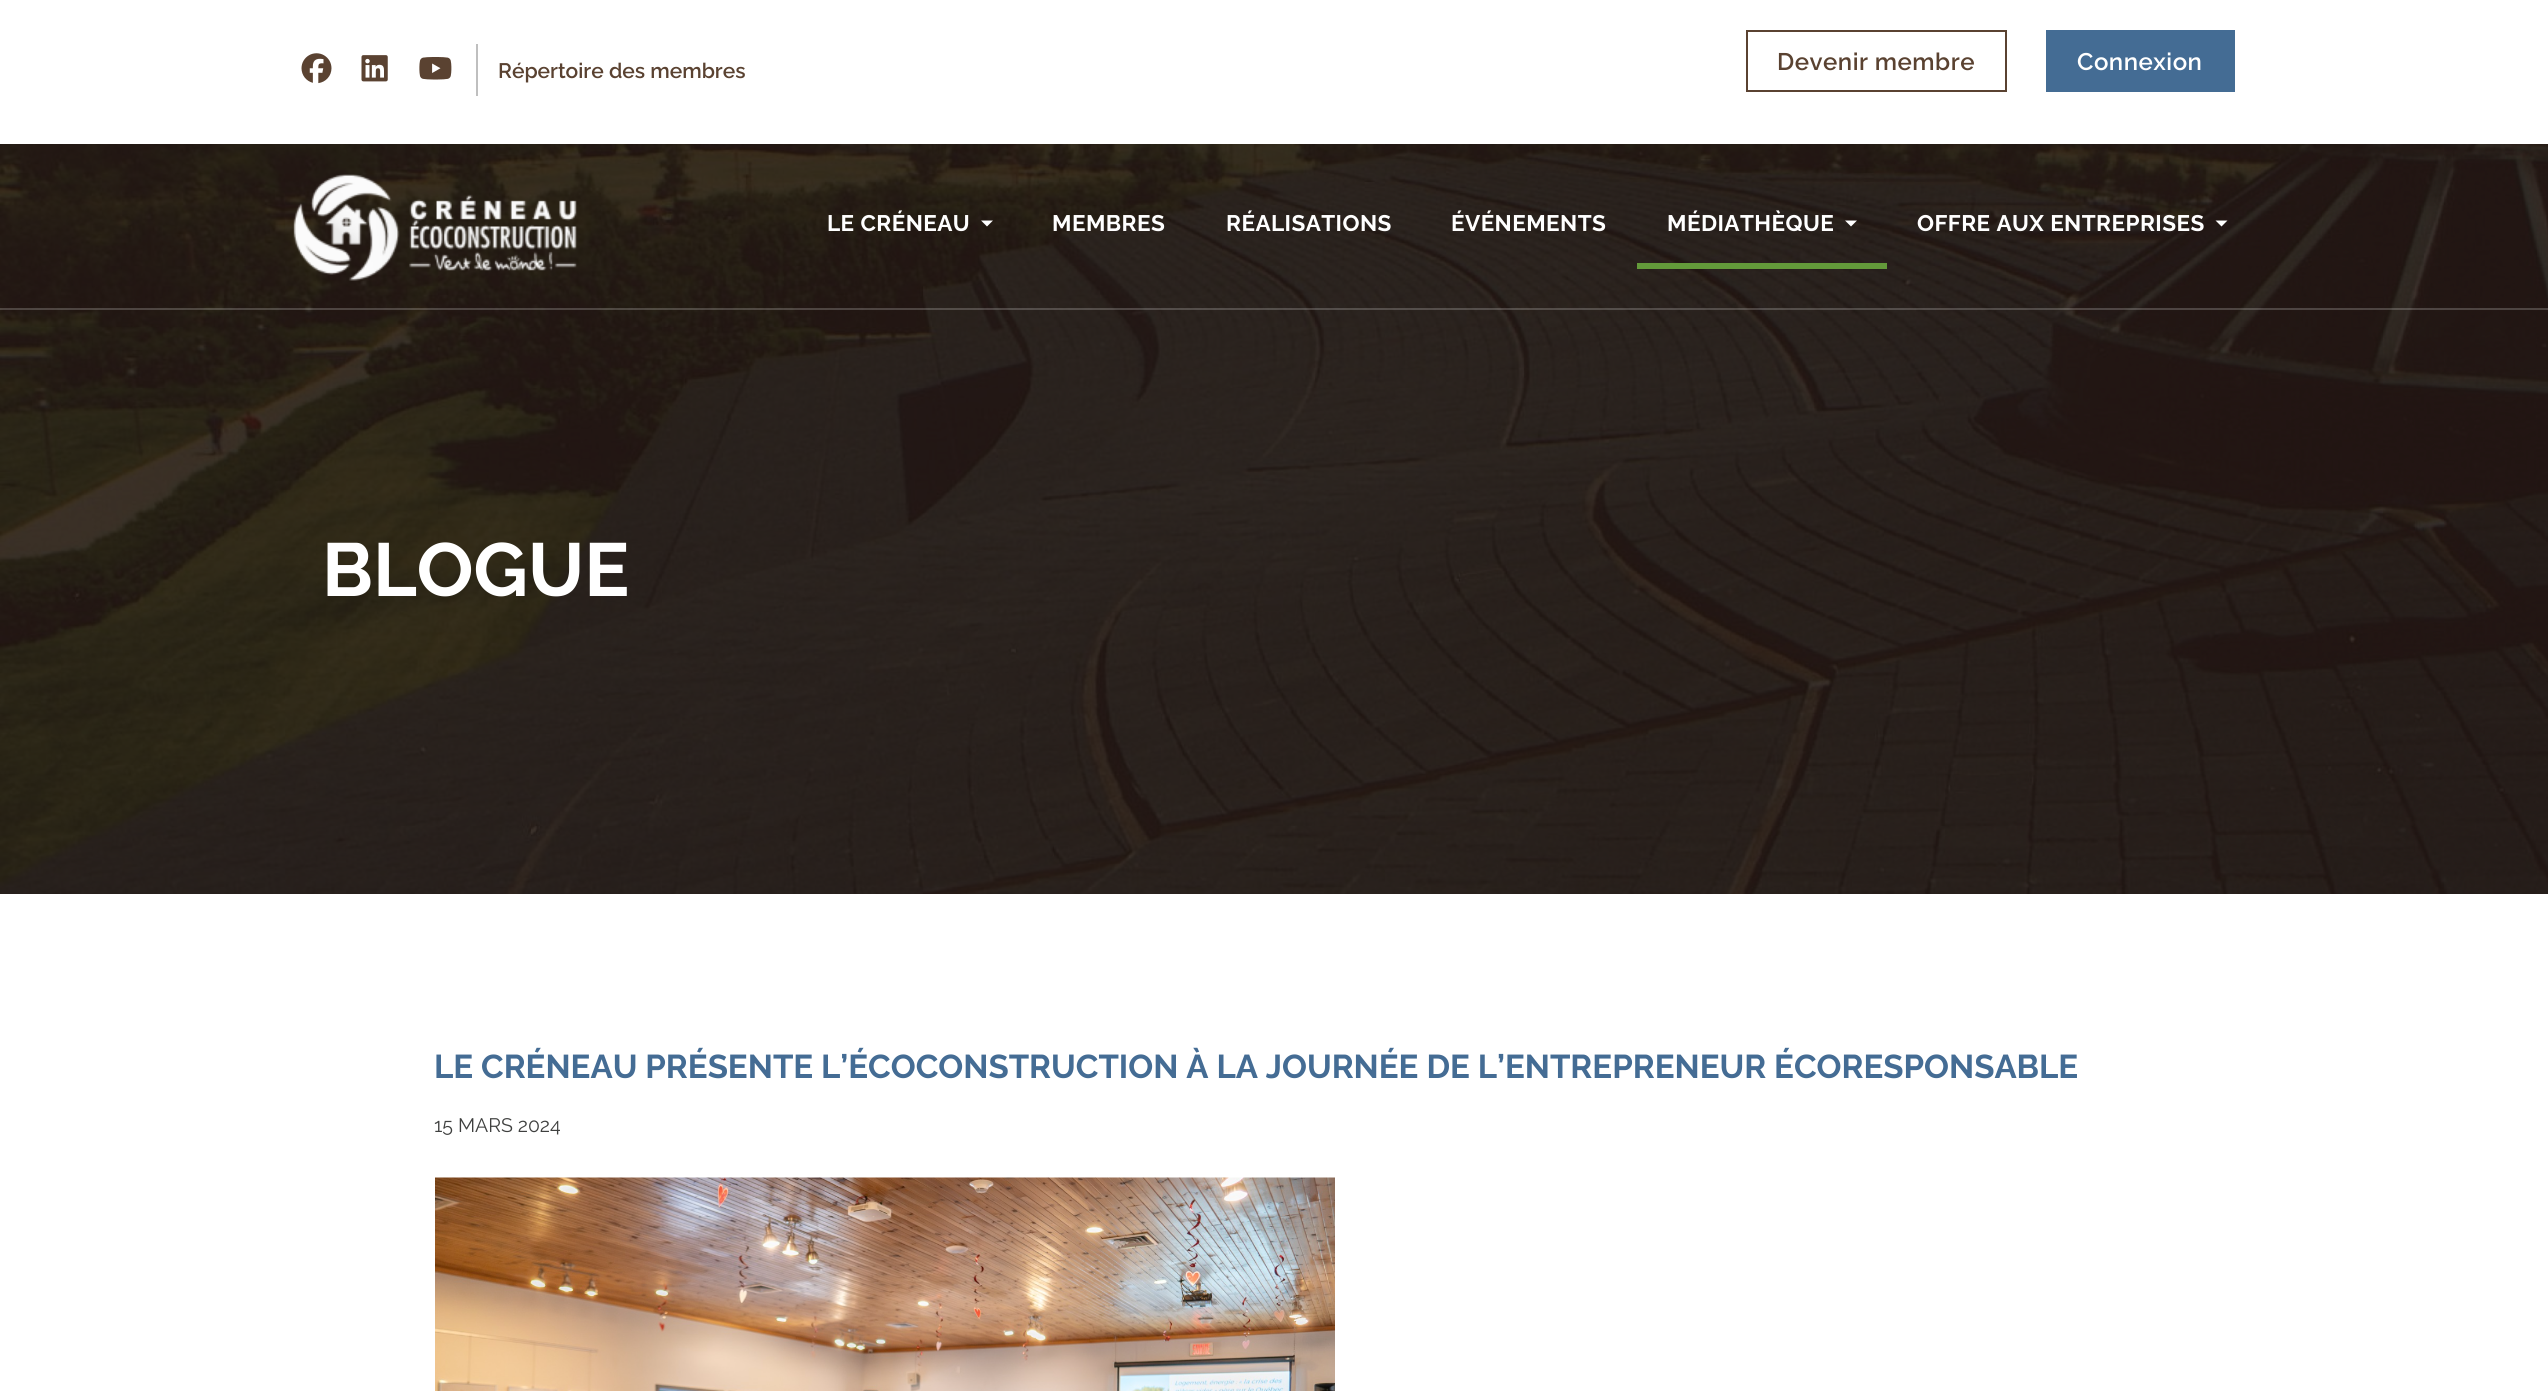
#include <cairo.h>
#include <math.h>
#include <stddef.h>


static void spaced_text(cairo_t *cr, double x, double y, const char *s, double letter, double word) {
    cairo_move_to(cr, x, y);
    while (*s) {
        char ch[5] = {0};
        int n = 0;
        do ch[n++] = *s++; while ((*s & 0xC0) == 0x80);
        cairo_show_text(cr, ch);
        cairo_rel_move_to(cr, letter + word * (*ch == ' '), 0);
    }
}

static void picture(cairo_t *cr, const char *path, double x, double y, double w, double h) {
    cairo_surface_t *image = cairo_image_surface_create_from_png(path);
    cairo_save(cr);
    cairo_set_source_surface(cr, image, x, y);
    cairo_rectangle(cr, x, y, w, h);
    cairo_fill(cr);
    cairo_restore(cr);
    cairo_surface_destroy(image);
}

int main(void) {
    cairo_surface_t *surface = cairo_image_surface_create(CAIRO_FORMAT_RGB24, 2548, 1391);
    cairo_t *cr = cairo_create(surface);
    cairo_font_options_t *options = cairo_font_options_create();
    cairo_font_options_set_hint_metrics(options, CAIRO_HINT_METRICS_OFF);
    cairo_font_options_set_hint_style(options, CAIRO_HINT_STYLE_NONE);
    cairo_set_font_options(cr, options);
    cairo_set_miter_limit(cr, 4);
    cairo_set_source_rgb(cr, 1, 1, 1);
    cairo_paint(cr);
    picture(cr, "img1.png", 301, 53, 31, 31);
    picture(cr, "img2.png", 361, 55, 27, 27);
    picture(cr, "img3.png", 419, 57, 33, 23);
    cairo_set_source_rgb(cr, 0.749, 0.749, 0.749);
    cairo_rectangle(cr, 476, 44, 2, 52);
    cairo_fill(cr);
    cairo_select_font_face(cr, "Raleway SemiBold", CAIRO_FONT_SLANT_NORMAL, CAIRO_FONT_WEIGHT_NORMAL);
    cairo_set_font_size(cr, 21);
    cairo_set_source_rgb(cr, 0.353, 0.259, 0.192);
    cairo_move_to(cr, 498, 78);
    cairo_show_text(cr, "Répertoire des membres");
    cairo_rectangle(cr, 1747, 31, 259, 60);
    cairo_stroke(cr);
    cairo_set_font_size(cr, 24);
    spaced_text(cr, 1777, 70, "Devenir membre", 0.5, 0);
    cairo_set_source_rgb(cr, 0.267, 0.424, 0.58);
    cairo_rectangle(cr, 2046, 30, 189, 62);
    cairo_fill(cr);
    cairo_set_source_rgb(cr, 1, 1, 1);
    spaced_text(cr, 2077, 70, "Connexion", 0.5, 0);
    picture(cr, "img5.png", 0, 144, 2548, 750);
    cairo_set_source_rgba(cr, 1, 1, 1, 0.2);
    cairo_rectangle(cr, 0, 308, 2548, 2);
    cairo_fill(cr);
    picture(cr, "img4.png", 293, 174, 284, 107);
    cairo_select_font_face(cr, "Raleway", CAIRO_FONT_SLANT_NORMAL, CAIRO_FONT_WEIGHT_BOLD);
    cairo_set_font_size(cr, 22.5);
    cairo_set_source_rgb(cr, 1, 1, 1);
    spaced_text(cr, 827, 231, "LE CRÉNEAU", 0.45, 0);
    cairo_new_path(cr);
    cairo_move_to(cr, 981, 220.5);
    cairo_line_to(cr, 993, 220.5);
    cairo_line_to(cr, 987, 226.5);
    cairo_close_path(cr);
    cairo_fill(cr);
    spaced_text(cr, 1052, 231, "MEMBRES", 0.45, 0);
    spaced_text(cr, 1226, 231, "RÉALISATIONS", 0.45, 0);
    spaced_text(cr, 1451, 231, "ÉVÉNEMENTS", 0.45, 0);
    cairo_set_source_rgb(cr, 0.388, 0.604, 0.227);
    cairo_rectangle(cr, 1637, 263, 250, 6);
    cairo_fill(cr);
    cairo_set_source_rgb(cr, 1, 1, 1);
    spaced_text(cr, 1667, 231, "MÉDIATHÈQUE", 0.45, 0);
    cairo_new_path(cr);
    cairo_move_to(cr, 1845, 220.5);
    cairo_line_to(cr, 1857, 220.5);
    cairo_line_to(cr, 1851, 226.5);
    cairo_close_path(cr);
    cairo_fill(cr);
    spaced_text(cr, 1917, 231, "OFFRE AUX ENTREPRISES", 0.45, 0);
    cairo_new_path(cr);
    cairo_move_to(cr, 2215.5, 220.5);
    cairo_line_to(cr, 2227.5, 220.5);
    cairo_line_to(cr, 2221.5, 226.5);
    cairo_close_path(cr);
    cairo_fill(cr);
    cairo_set_font_size(cr, 75);
    cairo_move_to(cr, 322, 596);
    cairo_show_text(cr, "BLOGUE");
    cairo_set_font_size(cr, 33);
    cairo_set_source_rgb(cr, 0.267, 0.424, 0.58);
    cairo_move_to(cr, 434, 1078);
    cairo_show_text(cr, "LE CRÉNEAU PRÉSENTE L’ÉCOCONSTRUCTION À LA JOURNÉE DE L’ENTREPRENEUR ÉCORESPONSABLE");
    cairo_select_font_face(cr, "Raleway", CAIRO_FONT_SLANT_NORMAL, CAIRO_FONT_WEIGHT_NORMAL);
    cairo_set_font_size(cr, 19.5);
    cairo_set_source_rgb(cr, 0.247, 0.251, 0.247);
    cairo_move_to(cr, 434, 1132);
    cairo_show_text(cr, "15 MARS 2024");
    picture(cr, "img6.png", 435, 1177, 900, 214);
    cairo_surface_write_to_png(surface, "page.png");
    cairo_font_options_destroy(options);
    cairo_destroy(cr);
    cairo_surface_destroy(surface);
    return 0;
}
